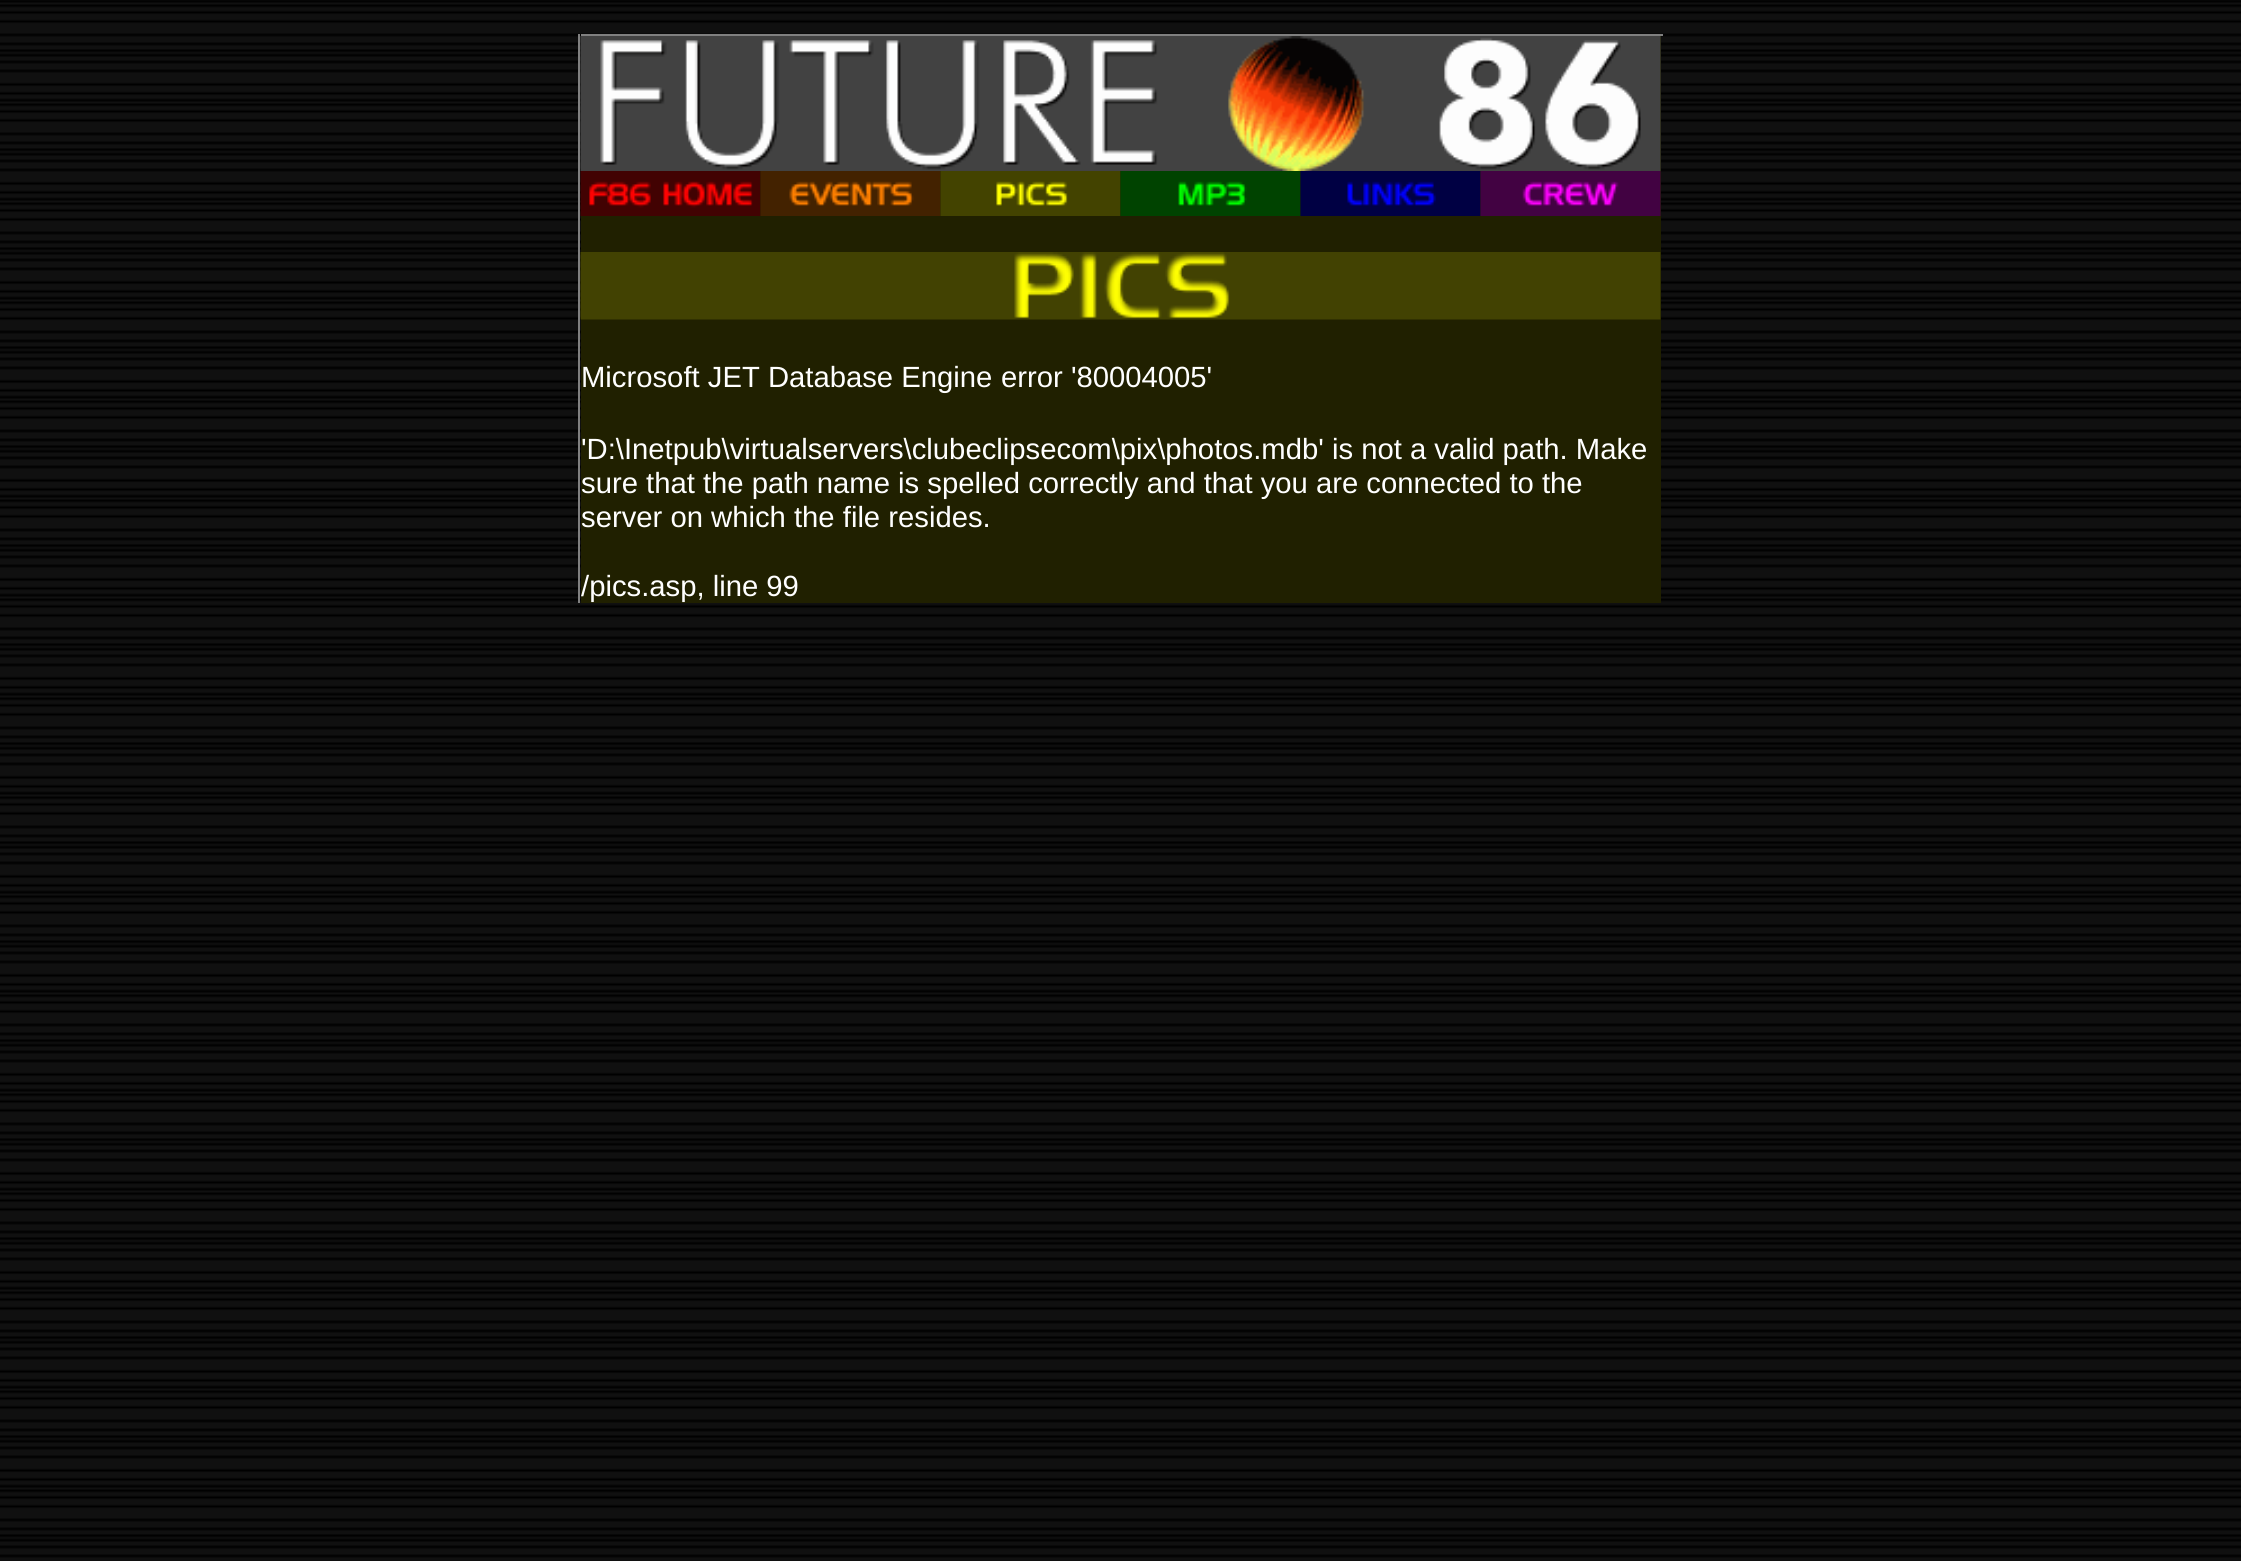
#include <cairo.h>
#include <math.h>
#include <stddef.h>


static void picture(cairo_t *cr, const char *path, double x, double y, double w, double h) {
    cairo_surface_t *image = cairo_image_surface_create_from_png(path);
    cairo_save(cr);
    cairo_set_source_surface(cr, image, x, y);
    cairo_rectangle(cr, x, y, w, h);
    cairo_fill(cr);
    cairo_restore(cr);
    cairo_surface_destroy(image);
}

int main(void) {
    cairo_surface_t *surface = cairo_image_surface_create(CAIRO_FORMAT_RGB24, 2241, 1561);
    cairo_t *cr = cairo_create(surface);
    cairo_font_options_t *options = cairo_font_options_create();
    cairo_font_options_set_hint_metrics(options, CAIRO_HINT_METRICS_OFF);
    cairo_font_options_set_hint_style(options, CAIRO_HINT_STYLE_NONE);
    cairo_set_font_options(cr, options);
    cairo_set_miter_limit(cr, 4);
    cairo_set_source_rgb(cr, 1, 1, 1);
    cairo_paint(cr);
    picture(cr, "img1.png", 0, 0, 2241, 1561);
    cairo_set_source_rgb(cr, 0.502, 0.502, 0.502);
    cairo_rectangle(cr, 578, 34, 2, 569);
    cairo_fill(cr);
    cairo_rectangle(cr, 581, 34, 1082, 2);
    cairo_fill(cr);
    cairo_set_source_rgb(cr, 0.125, 0.125, 0);
    cairo_rectangle(cr, 581, 36, 1080, 567);
    cairo_fill(cr);
    picture(cr, "img2.png", 580, 36, 1081, 135);
    picture(cr, "img3.png", 580, 171, 181, 45);
    picture(cr, "img4.png", 760, 171, 181, 45);
    picture(cr, "img5.png", 940, 171, 181, 45);
    picture(cr, "img6.png", 1120, 171, 181, 45);
    picture(cr, "img7.png", 1300, 171, 181, 45);
    picture(cr, "img8.png", 1480, 171, 181, 45);
    picture(cr, "img9.png", 580, 252, 1081, 68);
    cairo_select_font_face(cr, "Liberation Sans", CAIRO_FONT_SLANT_NORMAL, CAIRO_FONT_WEIGHT_NORMAL);
    cairo_set_font_size(cr, 29.25);
    cairo_set_source_rgb(cr, 1, 1, 1);
    cairo_move_to(cr, 581, 387);
    cairo_show_text(cr, "Microsoft JET Database Engine");
    cairo_move_to(cr, 1001, 387);
    cairo_show_text(cr, "error '80004005'");
    cairo_move_to(cr, 581, 459);
    cairo_show_text(cr, "'D:\\Inetpub\\virtualservers\\clubeclipsecom\\pix\\photos.mdb' is not a valid path. Make");
    cairo_move_to(cr, 581, 493);
    cairo_show_text(cr, "sure that the path name is spelled correctly and that you are connected to the");
    cairo_move_to(cr, 581, 527);
    cairo_show_text(cr, "server on which the file resides.");
    cairo_move_to(cr, 581, 596);
    cairo_show_text(cr, "/pics.asp, line 99");
    cairo_surface_write_to_png(surface, "page.png");
    cairo_font_options_destroy(options);
    cairo_destroy(cr);
    cairo_surface_destroy(surface);
    return 0;
}
